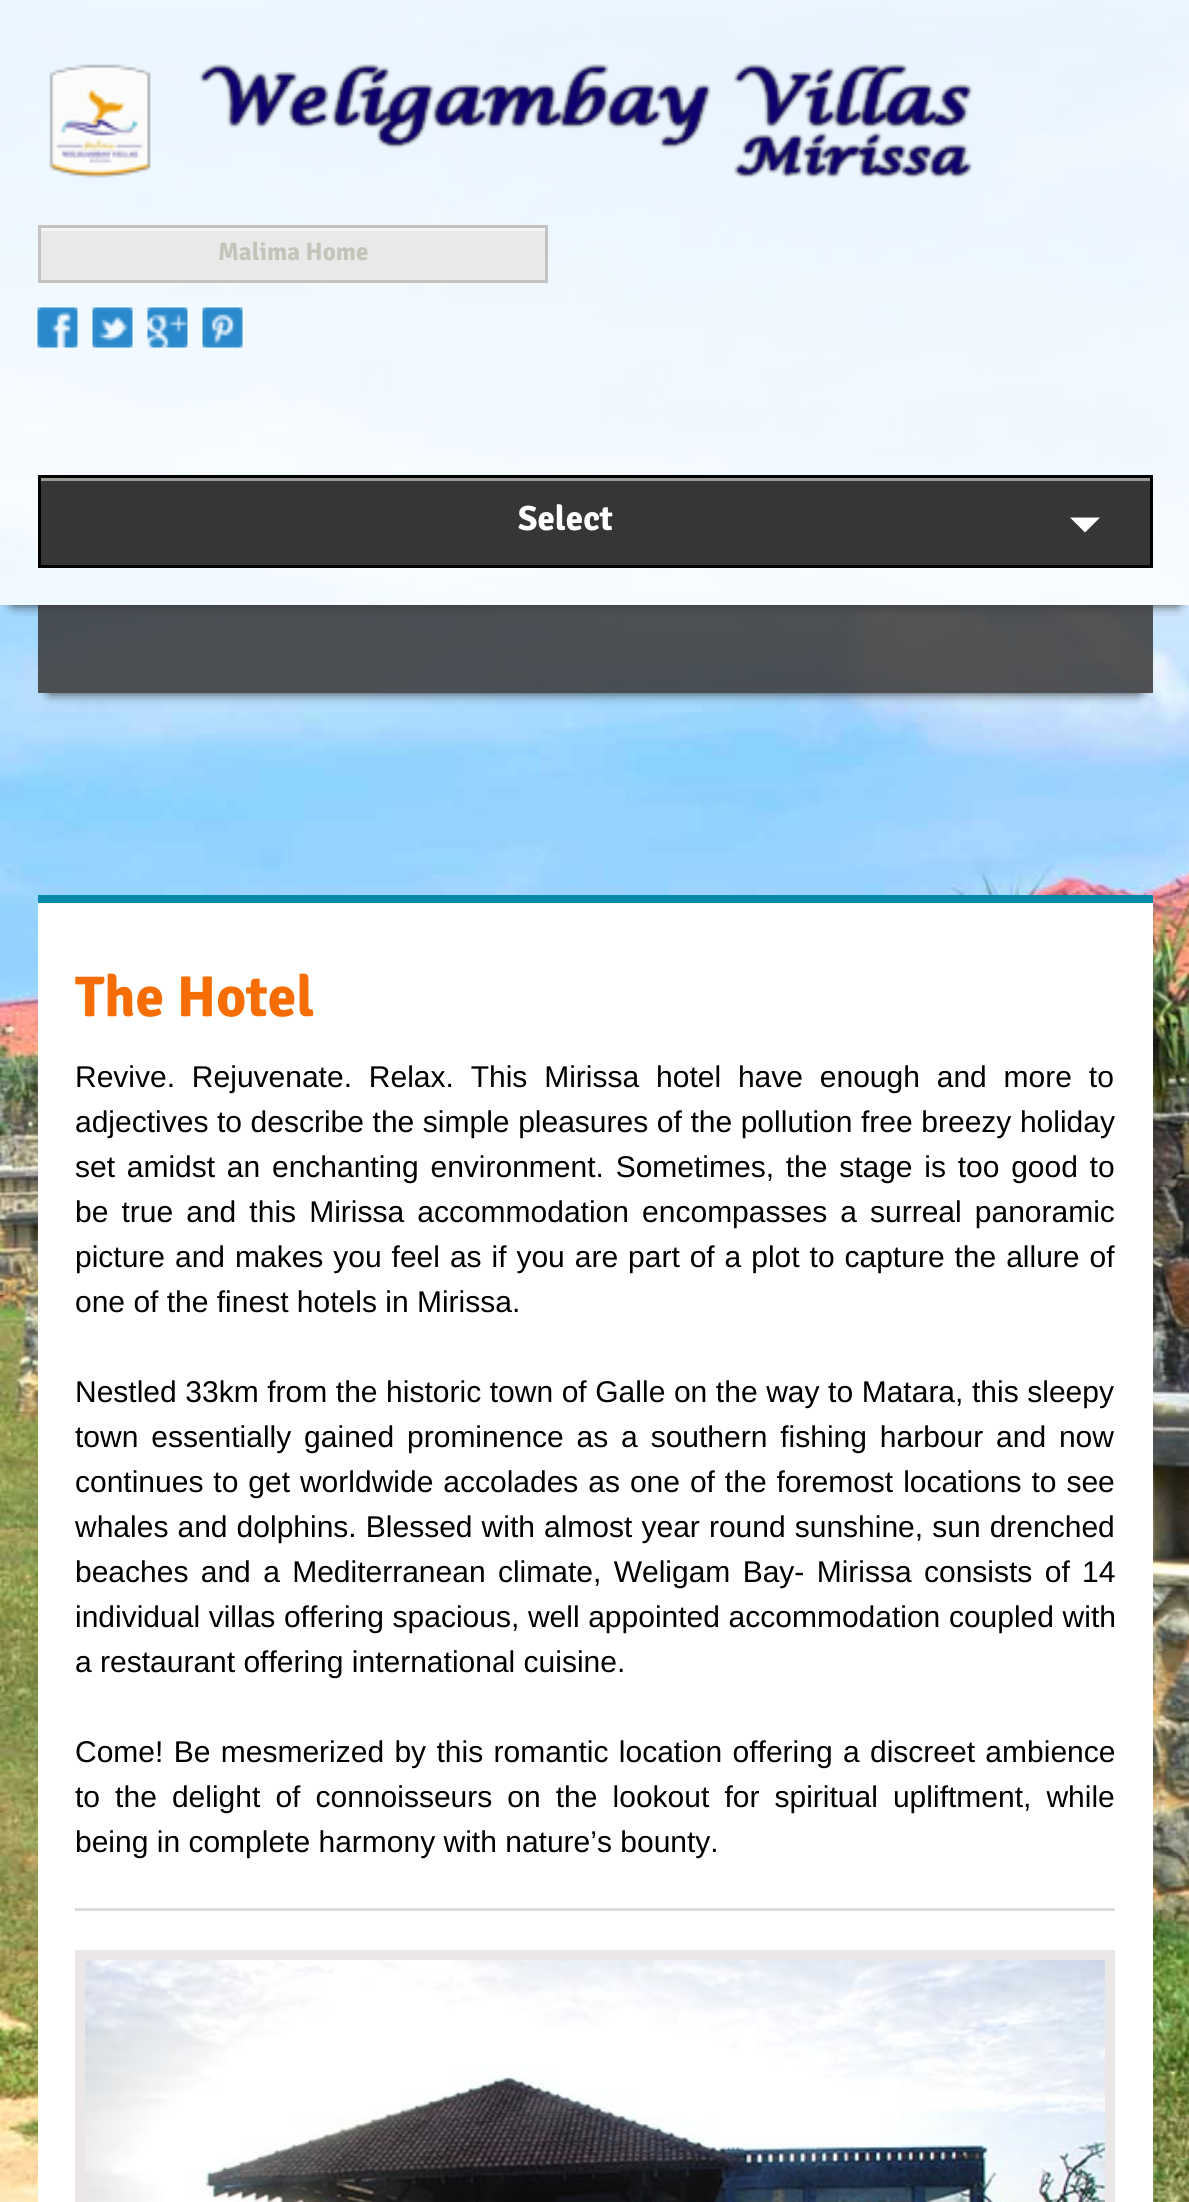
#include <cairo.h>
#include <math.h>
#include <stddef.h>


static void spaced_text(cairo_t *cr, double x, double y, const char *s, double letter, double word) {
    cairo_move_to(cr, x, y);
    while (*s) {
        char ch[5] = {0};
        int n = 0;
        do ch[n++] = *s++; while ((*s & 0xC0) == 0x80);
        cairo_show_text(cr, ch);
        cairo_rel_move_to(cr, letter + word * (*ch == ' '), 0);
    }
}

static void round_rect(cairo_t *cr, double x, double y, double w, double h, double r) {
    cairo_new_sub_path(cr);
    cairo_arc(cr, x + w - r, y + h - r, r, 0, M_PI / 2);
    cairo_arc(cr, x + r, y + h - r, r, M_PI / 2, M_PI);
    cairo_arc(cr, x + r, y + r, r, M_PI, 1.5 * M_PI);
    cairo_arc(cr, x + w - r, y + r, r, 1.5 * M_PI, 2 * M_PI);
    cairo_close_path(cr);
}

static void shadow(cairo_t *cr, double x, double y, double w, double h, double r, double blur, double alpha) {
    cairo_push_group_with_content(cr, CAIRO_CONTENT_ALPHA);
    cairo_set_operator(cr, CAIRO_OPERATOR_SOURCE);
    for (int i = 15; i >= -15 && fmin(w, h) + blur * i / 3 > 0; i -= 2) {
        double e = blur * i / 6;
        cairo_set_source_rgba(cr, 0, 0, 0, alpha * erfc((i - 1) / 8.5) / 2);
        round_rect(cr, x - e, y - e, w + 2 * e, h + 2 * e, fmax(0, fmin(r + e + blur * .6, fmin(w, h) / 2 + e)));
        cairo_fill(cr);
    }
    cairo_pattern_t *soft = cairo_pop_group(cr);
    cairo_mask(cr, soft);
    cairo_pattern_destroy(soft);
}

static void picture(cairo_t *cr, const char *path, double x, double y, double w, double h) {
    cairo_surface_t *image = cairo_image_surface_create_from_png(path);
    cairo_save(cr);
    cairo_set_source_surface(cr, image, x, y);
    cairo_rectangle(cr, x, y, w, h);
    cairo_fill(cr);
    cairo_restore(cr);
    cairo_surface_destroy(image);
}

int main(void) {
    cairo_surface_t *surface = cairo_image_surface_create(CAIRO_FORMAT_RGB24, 1189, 2202);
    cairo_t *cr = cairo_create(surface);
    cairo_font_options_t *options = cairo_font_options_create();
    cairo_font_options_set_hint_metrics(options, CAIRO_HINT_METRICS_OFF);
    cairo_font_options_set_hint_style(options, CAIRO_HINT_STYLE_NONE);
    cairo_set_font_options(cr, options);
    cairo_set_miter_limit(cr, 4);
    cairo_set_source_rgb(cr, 1, 1, 1);
    cairo_paint(cr);
    picture(cr, "img1.png", 0, 0, 1189, 2202);
    cairo_set_source_rgba(cr, 1, 1, 1, 0.85);
    cairo_rectangle(cr, 0, 0, 1189, 438);
    cairo_fill(cr);
    picture(cr, "img2.png", 49, 64, 924, 114);
    cairo_set_source_rgb(cr, 0.914, 0.914, 0.914);
    cairo_rectangle(cr, 41, 231, 504, 49);
    cairo_fill(cr);
    cairo_set_source_rgb(cr, 0.957, 0.957, 0.957);
    cairo_rectangle(cr, 40, 228, 505, 3);
    cairo_fill(cr);
    cairo_rectangle(cr, 39.5, 226.5, 507, 55);
    cairo_set_source_rgb(cr, 0.765, 0.765, 0.765);
    cairo_set_line_width(cr, 3);
    cairo_stroke(cr);
    cairo_select_font_face(cr, "Signika", CAIRO_FONT_SLANT_NORMAL, CAIRO_FONT_WEIGHT_BOLD);
    cairo_set_font_size(cr, 25);
    cairo_set_source_rgb(cr, 0.769, 0.769, 0.733);
    cairo_move_to(cr, 218, 260);
    cairo_show_text(cr, "Malima Home");
    picture(cr, "img3.png", 37, 307, 41, 41);
    picture(cr, "img4.png", 92, 307, 41, 41);
    picture(cr, "img5.png", 147, 307, 41, 41);
    picture(cr, "img6.png", 202, 307, 41, 41);
    cairo_save(cr);
    cairo_rectangle(cr, 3, 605, 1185, 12);
    cairo_clip(cr);
    cairo_set_source_rgb(cr, 0.2, 0.2, 0.2);
    shadow(cr, 13, 463, 1165, 142, 0, 6, 1);
    cairo_restore(cr);
    cairo_set_source_rgba(cr, 1, 1, 1, 0.85);
    cairo_rectangle(cr, 0, 438, 1189, 167);
    cairo_fill(cr);
    cairo_set_source_rgb(cr, 0.212, 0.212, 0.212);
    cairo_rectangle(cr, 41, 481, 1109, 84);
    cairo_fill(cr);
    cairo_set_source_rgb(cr, 0.608, 0.608, 0.608);
    cairo_rectangle(cr, 40, 478, 1110, 3);
    cairo_fill(cr);
    cairo_rectangle(cr, 39.5, 476.5, 1112, 90);
    cairo_set_source_rgb(cr, 0, 0, 0);
    cairo_stroke(cr);
    cairo_set_font_size(cr, 35);
    cairo_set_source_rgb(cr, 1, 1, 1);
    cairo_move_to(cr, 518, 530);
    cairo_show_text(cr, "Select");
    cairo_new_path(cr);
    cairo_move_to(cr, 1070, 517.5);
    cairo_line_to(cr, 1100, 517.5);
    cairo_line_to(cr, 1085, 532.5);
    cairo_close_path(cr);
    cairo_fill(cr);
    cairo_save(cr);
    cairo_set_fill_rule(cr, CAIRO_FILL_RULE_EVEN_ODD);
    cairo_new_path(cr);
    cairo_move_to(cr, 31, 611);
    cairo_line_to(cr, 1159, 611);
    cairo_line_to(cr, 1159, 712);
    cairo_line_to(cr, 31, 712);
    cairo_close_path(cr);
    cairo_move_to(cr, 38, 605);
    cairo_line_to(cr, 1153, 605);
    cairo_line_to(cr, 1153, 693);
    cairo_line_to(cr, 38, 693);
    cairo_close_path(cr);
    cairo_clip(cr);
    cairo_set_source_rgb(cr, 0.2, 0.2, 0.2);
    shadow(cr, 50, 630, 1090, 63, 0, 6, 1);
    cairo_restore(cr);
    cairo_set_source_rgba(cr, 0.22, 0.212, 0.212, 0.85);
    cairo_rectangle(cr, 38, 605, 1115, 88);
    cairo_fill(cr);
    cairo_set_source_rgb(cr, 1, 1, 1);
    cairo_rectangle(cr, 38, 903, 1115, 1299);
    cairo_fill(cr);
    cairo_set_source_rgb(cr, 0.012, 0.537, 0.667);
    cairo_rectangle(cr, 38, 895, 1115, 8);
    cairo_fill(cr);
    cairo_set_font_size(cr, 57.5);
    cairo_set_source_rgb(cr, 0.961, 0.427, 0.012);
    cairo_move_to(cr, 75, 1016);
    cairo_show_text(cr, "The Hotel");
    cairo_select_font_face(cr, "Liberation Sans", CAIRO_FONT_SLANT_NORMAL, CAIRO_FONT_WEIGHT_NORMAL);
    cairo_set_font_size(cr, 30);
    cairo_set_source_rgb(cr, 0, 0, 0);
    spaced_text(cr, 75, 1087, "Revive. Rejuvenate. Relax. This Mirissa hotel have enough and more to", 0, 8.5);
    spaced_text(cr, 75, 1132, "adjectives to describe the simple pleasures of the pollution free breezy holiday", 0, 0.25);
    spaced_text(cr, 75, 1177, "set amidst an enchanting environment. Sometimes, the stage is too good to", 0, 3.4);
    spaced_text(cr, 75, 1222, "be true and this Mirissa accommodation encompasses a surreal panoramic", 0, 4.75);
    spaced_text(cr, 75, 1267, "picture and makes you feel as if you are part of a plot to capture the allure of", 0, 1.6);
    cairo_move_to(cr, 75, 1312);
    cairo_show_text(cr, "one of the finest hotels in Mirissa.");
    spaced_text(cr, 75, 1402, "Nestled 33km from the historic town of Galle on the way to Matara, this sleepy", 0, 0.25);
    spaced_text(cr, 75, 1447, "town essentially gained prominence as a southern fishing harbour and now", 0, 4.5);
    spaced_text(cr, 75, 1492, "continues to get worldwide accolades as one of the foremost locations to see", 0, 1.6);
    spaced_text(cr, 75, 1537, "whales and dolphins. Blessed with almost year round sunshine, sun drenched", 0, 0.75);
    spaced_text(cr, 75, 1582, "beaches and a Mediterranean climate, Weligam Bay- Mirissa consists of 14", 0, 4);
    spaced_text(cr, 75, 1627, "individual villas offering spacious, well appointed accommodation coupled with", 0, 0.25);
    cairo_move_to(cr, 75, 1672);
    cairo_show_text(cr, "a restaurant offering international cuisine.");
    spaced_text(cr, 75, 1762, "Come! Be mesmerized by this romantic location offering a discreet ambience", 0, 2);
    spaced_text(cr, 75, 1807, "to the delight of connoisseurs on the lookout for spiritual upliftment, while", 0, 6.75);
    cairo_move_to(cr, 75, 1852);
    cairo_show_text(cr, "being in complete harmony with nature’s bounty.");
    cairo_set_source_rgb(cr, 0.863, 0.863, 0.863);
    cairo_rectangle(cr, 75, 1908, 1040, 3);
    cairo_fill(cr);
    cairo_rectangle(cr, 80, 1955, 1030, 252);
    cairo_set_source_rgb(cr, 0.918, 0.906, 0.902);
    cairo_set_line_width(cr, 10);
    cairo_stroke(cr);
    picture(cr, "img7.png", 85, 1960, 1020, 242);
    cairo_surface_write_to_png(surface, "page.png");
    cairo_font_options_destroy(options);
    cairo_destroy(cr);
    cairo_surface_destroy(surface);
    return 0;
}
